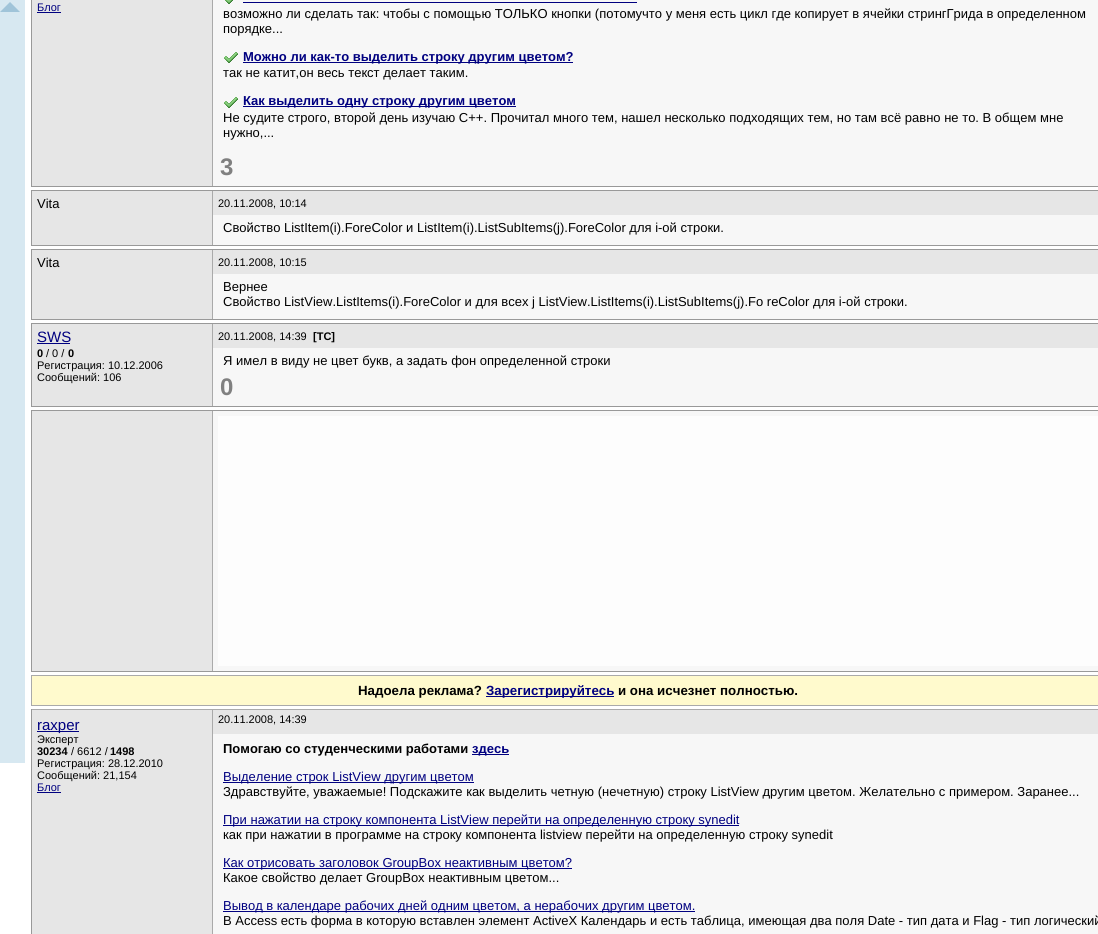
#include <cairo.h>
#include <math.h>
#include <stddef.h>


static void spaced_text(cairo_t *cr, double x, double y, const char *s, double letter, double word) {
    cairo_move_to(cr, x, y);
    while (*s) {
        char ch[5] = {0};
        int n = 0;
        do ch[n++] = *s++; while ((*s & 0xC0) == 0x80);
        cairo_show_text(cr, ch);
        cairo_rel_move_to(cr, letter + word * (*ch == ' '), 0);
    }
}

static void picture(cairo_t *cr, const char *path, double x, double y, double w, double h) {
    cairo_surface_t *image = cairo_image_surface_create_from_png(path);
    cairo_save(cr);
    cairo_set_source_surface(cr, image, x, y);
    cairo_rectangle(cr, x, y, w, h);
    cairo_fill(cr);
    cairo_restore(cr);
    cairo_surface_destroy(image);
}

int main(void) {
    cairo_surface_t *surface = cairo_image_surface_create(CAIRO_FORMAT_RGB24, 1098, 934);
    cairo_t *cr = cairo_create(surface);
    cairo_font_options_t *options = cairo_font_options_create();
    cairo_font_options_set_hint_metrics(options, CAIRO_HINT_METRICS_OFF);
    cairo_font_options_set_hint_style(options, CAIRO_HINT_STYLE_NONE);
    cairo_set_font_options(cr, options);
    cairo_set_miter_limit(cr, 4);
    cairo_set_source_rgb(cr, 1, 1, 1);
    cairo_paint(cr);
    cairo_set_source_rgb(cr, 0.843, 0.91, 0.945);
    cairo_rectangle(cr, 0, 0, 25, 763);
    cairo_fill(cr);
    cairo_set_source_rgb(cr, 0.627, 0.769, 0.851);
    cairo_new_path(cr);
    cairo_move_to(cr, 20, 12);
    cairo_line_to(cr, 0, 12);
    cairo_line_to(cr, 10, 2);
    cairo_close_path(cr);
    cairo_fill(cr);
    cairo_set_source_rgb(cr, 0.6, 0.6, 0.6);
    cairo_rectangle(cr, 31, 186, 1067, 1);
    cairo_fill(cr);
    cairo_rectangle(cr, 31, 0, 1, 187);
    cairo_fill(cr);
    cairo_set_source_rgb(cr, 0.902, 0.902, 0.902);
    cairo_rectangle(cr, 32, 0, 180, 186);
    cairo_fill(cr);
    cairo_set_source_rgb(cr, 0.667, 0.667, 0.667);
    cairo_rectangle(cr, 212, 0, 1, 186);
    cairo_fill(cr);
    cairo_select_font_face(cr, "Liberation Sans", CAIRO_FONT_SLANT_NORMAL, CAIRO_FONT_WEIGHT_NORMAL);
    cairo_set_font_size(cr, 11);
    cairo_set_source_rgb(cr, 0, 0, 0.502);
    cairo_move_to(cr, 37, 11);
    cairo_show_text(cr, "Блог");
    cairo_rectangle(cr, 37, 12, 24, 1);
    cairo_fill(cr);
    cairo_set_source_rgb(cr, 0.965, 0.965, 0.965);
    cairo_rectangle(cr, 213, 0, 885, 186);
    cairo_fill(cr);
    picture(cr, "img1.png", 225, 0, 8, 4);
    cairo_set_source_rgb(cr, 0, 0, 0.502);
    cairo_rectangle(cr, 243, 2, 394, 1);
    cairo_fill(cr);
    cairo_set_font_size(cr, 13);
    cairo_set_source_rgb(cr, 0, 0, 0);
    cairo_move_to(cr, 223, 18);
    cairo_show_text(cr, "возможно ли сделать так: чтобы с помощью ТОЛЬКО кнопки (потомучто у меня есть цикл где копирует в ячейки стрингГрида в определенном");
    cairo_move_to(cr, 223, 33);
    cairo_show_text(cr, "порядке...");
    picture(cr, "img2.png", 224, 52, 14, 11);
    cairo_set_source_rgb(cr, 0, 0, 0.502);
    cairo_rectangle(cr, 243, 62, 330, 1);
    cairo_fill(cr);
    cairo_select_font_face(cr, "Liberation Sans", CAIRO_FONT_SLANT_NORMAL, CAIRO_FONT_WEIGHT_BOLD);
    cairo_move_to(cr, 243, 61);
    cairo_show_text(cr, "Можно ли как-то выделить строку другим цветом?");
    cairo_select_font_face(cr, "Liberation Sans", CAIRO_FONT_SLANT_NORMAL, CAIRO_FONT_WEIGHT_NORMAL);
    cairo_set_source_rgb(cr, 0, 0, 0);
    cairo_move_to(cr, 223, 77);
    cairo_show_text(cr, "так не катит,он весь текст делает таким.");
    picture(cr, "img2.png", 224, 97, 14, 11);
    cairo_set_source_rgb(cr, 0, 0, 0.502);
    cairo_rectangle(cr, 243, 106, 273, 1);
    cairo_fill(cr);
    cairo_select_font_face(cr, "Liberation Sans", CAIRO_FONT_SLANT_NORMAL, CAIRO_FONT_WEIGHT_BOLD);
    cairo_move_to(cr, 243, 105);
    cairo_show_text(cr, "Как выделить одну строку другим цветом");
    cairo_select_font_face(cr, "Liberation Sans", CAIRO_FONT_SLANT_NORMAL, CAIRO_FONT_WEIGHT_NORMAL);
    cairo_set_source_rgb(cr, 0, 0, 0);
    cairo_move_to(cr, 223, 122);
    cairo_show_text(cr, "Не судите строго, второй день изучаю С++. Прочитал много тем, нашел несколько подходящих тем, но там всё равно не то. В общем мне");
    cairo_move_to(cr, 223, 137);
    cairo_show_text(cr, "нужно,...");
    cairo_select_font_face(cr, "Liberation Sans", CAIRO_FONT_SLANT_NORMAL, CAIRO_FONT_WEIGHT_BOLD);
    cairo_set_font_size(cr, 24);
    cairo_set_source_rgb(cr, 0.502, 0.502, 0.502);
    spaced_text(cr, 220, 175, "3", -1, 0);
    cairo_rectangle(cr, 31.5, 190.5, 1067, 55);
    cairo_set_source_rgb(cr, 0.6, 0.6, 0.6);
    cairo_set_line_width(cr, 1);
    cairo_stroke(cr);
    cairo_set_source_rgb(cr, 0.902, 0.902, 0.902);
    cairo_rectangle(cr, 32, 191, 180, 54);
    cairo_fill(cr);
    cairo_set_source_rgb(cr, 0.667, 0.667, 0.667);
    cairo_rectangle(cr, 212, 191, 1, 54);
    cairo_fill(cr);
    cairo_select_font_face(cr, "Liberation Sans", CAIRO_FONT_SLANT_NORMAL, CAIRO_FONT_WEIGHT_NORMAL);
    cairo_set_font_size(cr, 13);
    cairo_set_source_rgb(cr, 0, 0, 0);
    cairo_move_to(cr, 37, 208);
    cairo_show_text(cr, "Vita");
    cairo_set_source_rgb(cr, 0.902, 0.902, 0.902);
    cairo_rectangle(cr, 213, 191, 885, 24);
    cairo_fill(cr);
    cairo_set_font_size(cr, 11);
    cairo_set_source_rgb(cr, 0, 0, 0);
    cairo_move_to(cr, 218, 207);
    cairo_show_text(cr, "20.11.2008, 10:14");
    cairo_set_source_rgb(cr, 0.965, 0.965, 0.965);
    cairo_rectangle(cr, 213, 215, 885, 30);
    cairo_fill(cr);
    cairo_set_font_size(cr, 13);
    cairo_set_source_rgb(cr, 0, 0, 0);
    cairo_move_to(cr, 223, 232);
    cairo_show_text(cr, "Свойство ListItem(i).ForeColor и ListItem(i).ListSubItems(j).ForeColor для i-ой строки.");
    cairo_rectangle(cr, 31.5, 249.5, 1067, 70);
    cairo_set_source_rgb(cr, 0.6, 0.6, 0.6);
    cairo_stroke(cr);
    cairo_set_source_rgb(cr, 0.902, 0.902, 0.902);
    cairo_rectangle(cr, 32, 250, 180, 69);
    cairo_fill(cr);
    cairo_set_source_rgb(cr, 0.667, 0.667, 0.667);
    cairo_rectangle(cr, 212, 250, 1, 69);
    cairo_fill(cr);
    cairo_set_source_rgb(cr, 0, 0, 0);
    cairo_move_to(cr, 37, 267);
    cairo_show_text(cr, "Vita");
    cairo_set_source_rgb(cr, 0.902, 0.902, 0.902);
    cairo_rectangle(cr, 213, 250, 885, 24);
    cairo_fill(cr);
    cairo_set_font_size(cr, 11);
    cairo_set_source_rgb(cr, 0, 0, 0);
    cairo_move_to(cr, 218, 266);
    cairo_show_text(cr, "20.11.2008, 10:15");
    cairo_set_source_rgb(cr, 0.965, 0.965, 0.965);
    cairo_rectangle(cr, 213, 274, 885, 45);
    cairo_fill(cr);
    cairo_set_font_size(cr, 13);
    cairo_set_source_rgb(cr, 0, 0, 0);
    cairo_move_to(cr, 223, 291);
    cairo_show_text(cr, "Вернее");
    cairo_move_to(cr, 223, 306);
    cairo_show_text(cr, "Свойство ListView.ListItems(i).ForeColor и для всех j ListView.ListItems(i).ListSubItems(j).Fo reColor для i-ой строки.");
    cairo_rectangle(cr, 31.5, 323.5, 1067, 83);
    cairo_set_source_rgb(cr, 0.6, 0.6, 0.6);
    cairo_stroke(cr);
    cairo_set_source_rgb(cr, 0.902, 0.902, 0.902);
    cairo_rectangle(cr, 32, 324, 180, 82);
    cairo_fill(cr);
    cairo_set_source_rgb(cr, 0.667, 0.667, 0.667);
    cairo_rectangle(cr, 212, 324, 1, 82);
    cairo_fill(cr);
    cairo_set_font_size(cr, 15);
    cairo_set_source_rgb(cr, 0, 0, 0.502);
    cairo_move_to(cr, 37, 342);
    cairo_show_text(cr, "SWS");
    cairo_rectangle(cr, 37, 343, 33, 1);
    cairo_fill(cr);
    cairo_select_font_face(cr, "Liberation Sans", CAIRO_FONT_SLANT_NORMAL, CAIRO_FONT_WEIGHT_BOLD);
    cairo_set_font_size(cr, 11);
    cairo_set_source_rgb(cr, 0, 0, 0);
    cairo_move_to(cr, 37, 357);
    cairo_show_text(cr, "0");
    cairo_select_font_face(cr, "Liberation Sans", CAIRO_FONT_SLANT_NORMAL, CAIRO_FONT_WEIGHT_NORMAL);
    cairo_move_to(cr, 46, 357);
    cairo_show_text(cr, "/ 0 /");
    cairo_select_font_face(cr, "Liberation Sans", CAIRO_FONT_SLANT_NORMAL, CAIRO_FONT_WEIGHT_BOLD);
    cairo_move_to(cr, 68, 357);
    cairo_show_text(cr, "0");
    cairo_select_font_face(cr, "Liberation Sans", CAIRO_FONT_SLANT_NORMAL, CAIRO_FONT_WEIGHT_NORMAL);
    cairo_move_to(cr, 37, 369);
    cairo_show_text(cr, "Регистрация: 10.12.2006");
    cairo_move_to(cr, 37, 381);
    cairo_show_text(cr, "Сообщений: 106");
    cairo_set_source_rgb(cr, 0.902, 0.902, 0.902);
    cairo_rectangle(cr, 213, 324, 885, 24);
    cairo_fill(cr);
    cairo_set_source_rgb(cr, 0, 0, 0);
    cairo_move_to(cr, 218, 340);
    cairo_show_text(cr, "20.11.2008, 14:39");
    cairo_select_font_face(cr, "Liberation Sans", CAIRO_FONT_SLANT_NORMAL, CAIRO_FONT_WEIGHT_BOLD);
    cairo_move_to(cr, 313, 340);
    cairo_show_text(cr, "[ТС]");
    cairo_set_source_rgb(cr, 0.965, 0.965, 0.965);
    cairo_rectangle(cr, 213, 348, 885, 58);
    cairo_fill(cr);
    cairo_select_font_face(cr, "Liberation Sans", CAIRO_FONT_SLANT_NORMAL, CAIRO_FONT_WEIGHT_NORMAL);
    cairo_set_font_size(cr, 13);
    cairo_set_source_rgb(cr, 0, 0, 0);
    cairo_move_to(cr, 223, 365);
    cairo_show_text(cr, "Я имел в виду не цвет букв, а задать фон определенной строки");
    cairo_select_font_face(cr, "Liberation Sans", CAIRO_FONT_SLANT_NORMAL, CAIRO_FONT_WEIGHT_BOLD);
    cairo_set_font_size(cr, 24);
    cairo_set_source_rgb(cr, 0.502, 0.502, 0.502);
    spaced_text(cr, 220, 395, "0", -1, 0);
    cairo_rectangle(cr, 31.5, 410.5, 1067, 261);
    cairo_set_source_rgb(cr, 0.6, 0.6, 0.6);
    cairo_stroke(cr);
    cairo_set_source_rgb(cr, 0.902, 0.902, 0.902);
    cairo_rectangle(cr, 32, 411, 180, 260);
    cairo_fill(cr);
    cairo_set_source_rgb(cr, 0.667, 0.667, 0.667);
    cairo_rectangle(cr, 212, 411, 1, 260);
    cairo_fill(cr);
    cairo_set_source_rgb(cr, 0.965, 0.965, 0.965);
    cairo_rectangle(cr, 213, 411, 885, 260);
    cairo_fill(cr);
    cairo_set_source_rgb(cr, 0.992, 0.992, 0.992);
    cairo_rectangle(cr, 218, 416, 880, 250);
    cairo_fill(cr);
    cairo_set_source_rgb(cr, 1, 0.98, 0.804);
    cairo_rectangle(cr, 31.5, 675.5, 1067, 30);
    cairo_fill_preserve(cr);
    cairo_set_source_rgb(cr, 0.667, 0.667, 0.667);
    cairo_stroke(cr);
    cairo_set_font_size(cr, 13.3);
    cairo_set_source_rgb(cr, 0, 0, 0);
    cairo_move_to(cr, 358, 695);
    cairo_show_text(cr, "Надоела реклама?");
    cairo_set_source_rgb(cr, 0, 0, 0.502);
    cairo_rectangle(cr, 486, 696, 128, 1);
    cairo_fill(cr);
    cairo_move_to(cr, 486, 695);
    cairo_show_text(cr, "Зарегистрируйтесь");
    cairo_set_source_rgb(cr, 0, 0, 0);
    cairo_move_to(cr, 618, 695);
    cairo_show_text(cr, "и она исчезнет полностью.");
    cairo_set_source_rgb(cr, 0.6, 0.6, 0.6);
    cairo_rectangle(cr, 31, 709, 1, 225);
    cairo_fill(cr);
    cairo_set_source_rgb(cr, 0.902, 0.902, 0.902);
    cairo_rectangle(cr, 213, 710, 885, 24);
    cairo_fill(cr);
    cairo_select_font_face(cr, "Liberation Sans", CAIRO_FONT_SLANT_NORMAL, CAIRO_FONT_WEIGHT_NORMAL);
    cairo_set_font_size(cr, 11);
    cairo_set_source_rgb(cr, 0, 0, 0);
    cairo_move_to(cr, 218, 723);
    cairo_show_text(cr, "20.11.2008, 14:39");
    cairo_set_source_rgb(cr, 0.902, 0.902, 0.902);
    cairo_rectangle(cr, 32, 710, 180, 224);
    cairo_fill(cr);
    cairo_set_source_rgb(cr, 0.667, 0.667, 0.667);
    cairo_rectangle(cr, 32, 709, 1066, 1);
    cairo_fill(cr);
    cairo_rectangle(cr, 212, 709, 1, 225);
    cairo_fill(cr);
    cairo_set_source_rgb(cr, 0, 0, 0.502);
    cairo_rectangle(cr, 37, 731, 42, 1);
    cairo_fill(cr);
    cairo_set_font_size(cr, 15);
    cairo_move_to(cr, 37, 730);
    cairo_show_text(cr, "raxper");
    cairo_set_font_size(cr, 11);
    cairo_set_source_rgb(cr, 0, 0, 0);
    cairo_move_to(cr, 37, 743);
    cairo_show_text(cr, "Эксперт");
    cairo_select_font_face(cr, "Liberation Sans", CAIRO_FONT_SLANT_NORMAL, CAIRO_FONT_WEIGHT_BOLD);
    cairo_move_to(cr, 37, 755);
    cairo_show_text(cr, "30234");
    cairo_select_font_face(cr, "Liberation Sans", CAIRO_FONT_SLANT_NORMAL, CAIRO_FONT_WEIGHT_NORMAL);
    cairo_move_to(cr, 71, 755);
    cairo_show_text(cr, "/ 6612 /");
    cairo_select_font_face(cr, "Liberation Sans", CAIRO_FONT_SLANT_NORMAL, CAIRO_FONT_WEIGHT_BOLD);
    cairo_move_to(cr, 110, 755);
    cairo_show_text(cr, "1498");
    cairo_select_font_face(cr, "Liberation Sans", CAIRO_FONT_SLANT_NORMAL, CAIRO_FONT_WEIGHT_NORMAL);
    cairo_move_to(cr, 37, 767);
    cairo_show_text(cr, "Регистрация: 28.12.2010");
    cairo_move_to(cr, 37, 779);
    cairo_show_text(cr, "Сообщений: 21,154");
    cairo_set_source_rgb(cr, 0, 0, 0.502);
    cairo_move_to(cr, 37, 791);
    cairo_show_text(cr, "Блог");
    cairo_rectangle(cr, 37, 792, 24, 1);
    cairo_fill(cr);
    cairo_set_source_rgb(cr, 0.965, 0.965, 0.965);
    cairo_rectangle(cr, 213, 734, 885, 200);
    cairo_fill(cr);
    cairo_select_font_face(cr, "Liberation Sans", CAIRO_FONT_SLANT_NORMAL, CAIRO_FONT_WEIGHT_BOLD);
    cairo_set_font_size(cr, 13);
    cairo_set_source_rgb(cr, 0, 0, 0);
    cairo_move_to(cr, 223, 753);
    cairo_show_text(cr, "Помогаю со студенческими работами");
    cairo_set_source_rgb(cr, 0, 0, 0.502);
    cairo_rectangle(cr, 472, 754, 37, 1);
    cairo_fill(cr);
    cairo_move_to(cr, 472, 753);
    cairo_show_text(cr, "здесь");
    cairo_rectangle(cr, 223, 782, 251, 1);
    cairo_fill(cr);
    cairo_select_font_face(cr, "Liberation Sans", CAIRO_FONT_SLANT_NORMAL, CAIRO_FONT_WEIGHT_NORMAL);
    cairo_move_to(cr, 223, 781);
    cairo_show_text(cr, "Выделение строк ListView другим цветом");
    cairo_set_source_rgb(cr, 0, 0, 0);
    cairo_move_to(cr, 223, 796);
    cairo_show_text(cr, "Здравствуйте, уважаемые! Подскажите как выделить четную (нечетную) строку ListView другим цветом. Желательно с примером. Заранее...");
    cairo_set_source_rgb(cr, 0, 0, 0.502);
    cairo_rectangle(cr, 223, 825, 516, 1);
    cairo_fill(cr);
    cairo_move_to(cr, 223, 824);
    cairo_show_text(cr, "При нажатии на строку компонента ListView перейти на определенную строку synedit");
    cairo_set_source_rgb(cr, 0, 0, 0);
    cairo_move_to(cr, 223, 839);
    cairo_show_text(cr, "как при нажатии в программе на строку компонента listview перейти на определенную строку synedit");
    cairo_set_source_rgb(cr, 0, 0, 0.502);
    cairo_rectangle(cr, 223, 868, 349, 1);
    cairo_fill(cr);
    cairo_move_to(cr, 223, 867);
    cairo_show_text(cr, "Как отрисовать заголовок GroupBox неактивным цветом?");
    cairo_set_source_rgb(cr, 0, 0, 0);
    cairo_move_to(cr, 223, 882);
    cairo_show_text(cr, "Какое свойство делает GroupBox неактивным цветом...");
    cairo_set_source_rgb(cr, 0, 0, 0.502);
    cairo_rectangle(cr, 223, 911, 472, 1);
    cairo_fill(cr);
    cairo_move_to(cr, 223, 910);
    cairo_show_text(cr, "Вывод в календаре рабочих дней одним цветом, а нерабочих другим цветом.");
    cairo_set_source_rgb(cr, 0, 0, 0);
    cairo_move_to(cr, 223, 925);
    cairo_show_text(cr, "В Access есть форма в которую вставлен элемент ActiveX Календарь и есть таблица, имеющая два поля Date - тип дата и Flag - тип логический");
    cairo_surface_write_to_png(surface, "page.png");
    cairo_font_options_destroy(options);
    cairo_destroy(cr);
    cairo_surface_destroy(surface);
    return 0;
}
